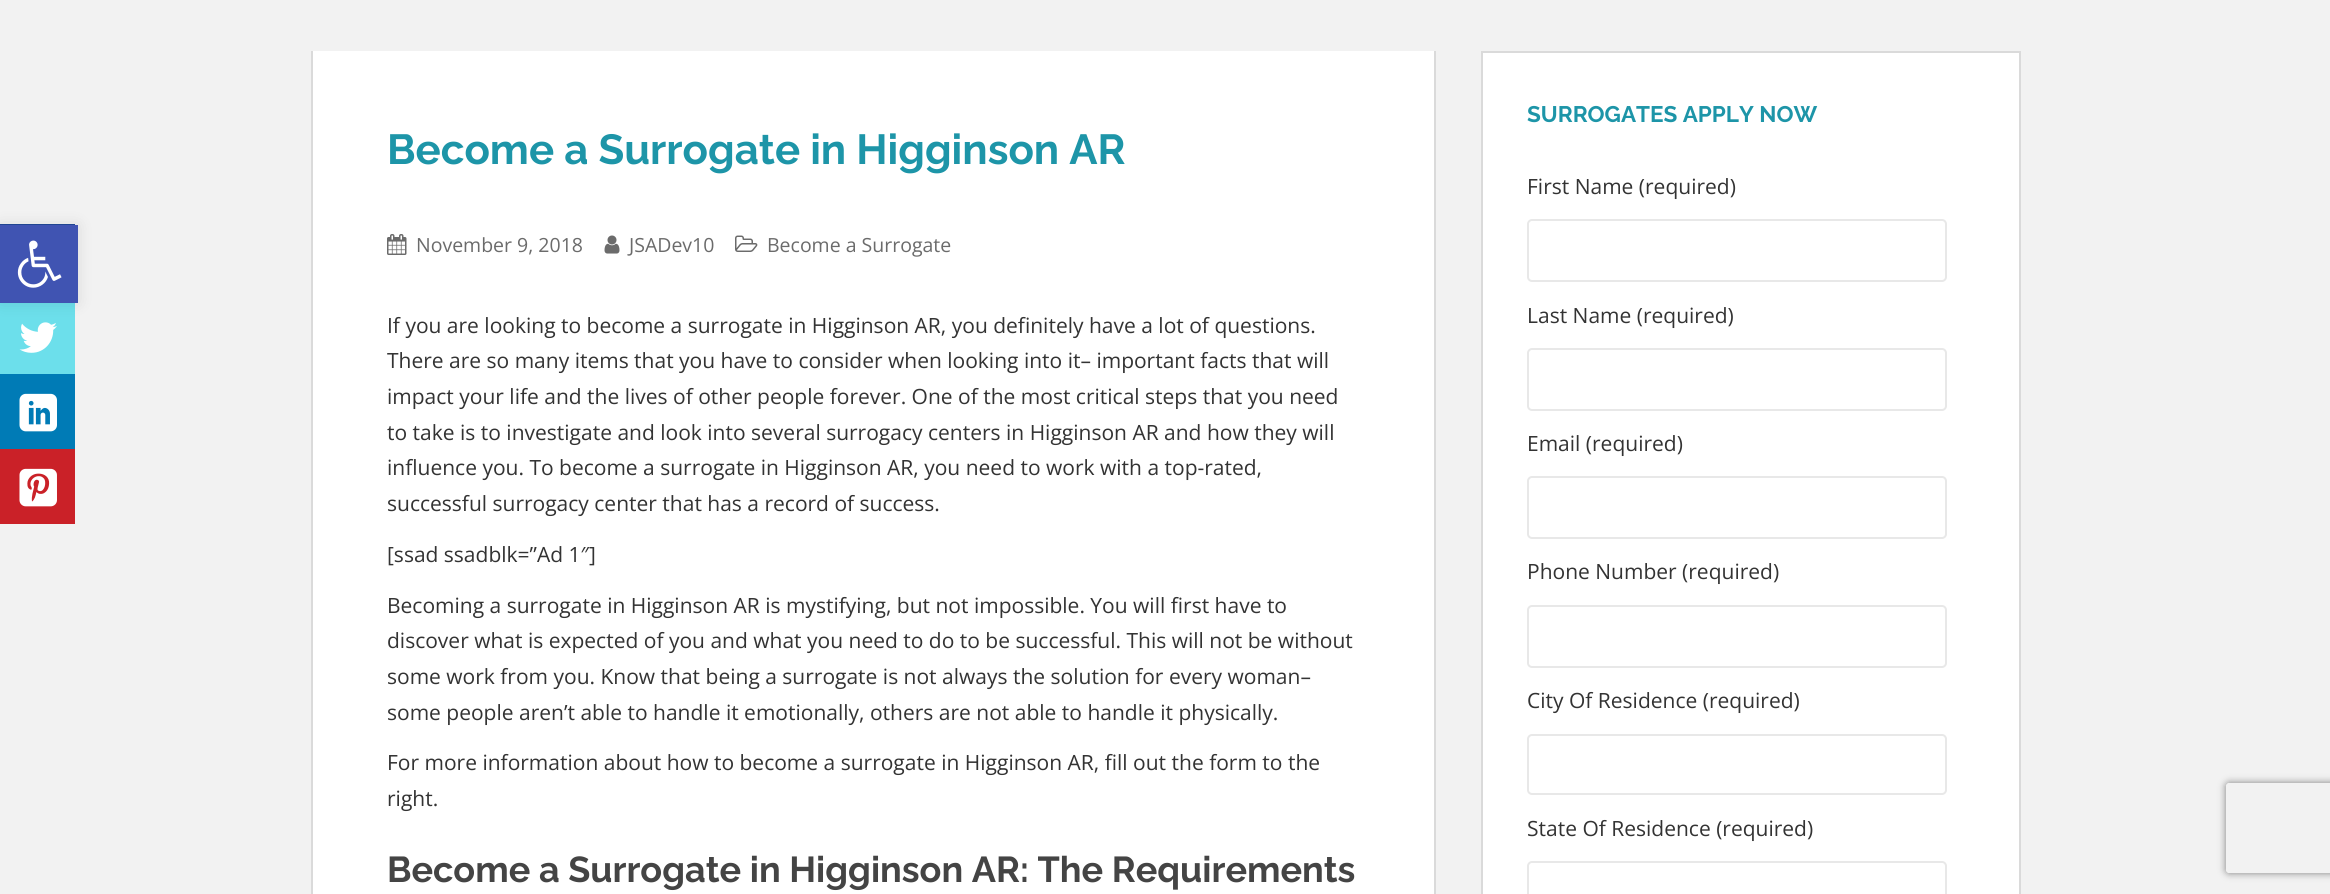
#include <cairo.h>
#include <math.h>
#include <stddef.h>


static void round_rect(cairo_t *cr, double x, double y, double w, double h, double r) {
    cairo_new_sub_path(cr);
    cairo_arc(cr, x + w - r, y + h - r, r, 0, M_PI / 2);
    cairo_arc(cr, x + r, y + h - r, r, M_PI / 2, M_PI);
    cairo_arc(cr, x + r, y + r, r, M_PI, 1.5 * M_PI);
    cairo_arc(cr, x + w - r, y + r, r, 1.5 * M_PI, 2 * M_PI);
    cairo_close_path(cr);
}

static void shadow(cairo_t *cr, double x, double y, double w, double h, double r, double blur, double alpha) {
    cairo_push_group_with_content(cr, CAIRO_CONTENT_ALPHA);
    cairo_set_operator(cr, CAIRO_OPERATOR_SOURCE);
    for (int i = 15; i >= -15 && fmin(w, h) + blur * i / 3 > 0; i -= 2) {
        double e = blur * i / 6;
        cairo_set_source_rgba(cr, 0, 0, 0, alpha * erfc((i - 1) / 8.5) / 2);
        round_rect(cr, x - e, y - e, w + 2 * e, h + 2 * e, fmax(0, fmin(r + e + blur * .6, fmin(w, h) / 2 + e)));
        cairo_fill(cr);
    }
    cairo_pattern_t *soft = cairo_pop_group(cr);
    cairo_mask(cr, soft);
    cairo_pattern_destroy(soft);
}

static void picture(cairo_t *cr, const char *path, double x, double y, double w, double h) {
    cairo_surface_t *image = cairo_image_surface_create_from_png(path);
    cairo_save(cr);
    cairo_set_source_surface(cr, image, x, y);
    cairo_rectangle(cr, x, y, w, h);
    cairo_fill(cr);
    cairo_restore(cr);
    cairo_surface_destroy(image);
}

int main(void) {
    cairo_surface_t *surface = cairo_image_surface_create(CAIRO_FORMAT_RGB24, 2330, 894);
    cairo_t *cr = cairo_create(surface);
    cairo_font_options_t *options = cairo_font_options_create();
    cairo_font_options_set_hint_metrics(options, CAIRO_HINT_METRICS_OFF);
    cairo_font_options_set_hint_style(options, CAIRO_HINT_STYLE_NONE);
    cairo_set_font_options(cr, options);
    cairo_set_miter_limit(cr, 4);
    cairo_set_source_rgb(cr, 0.949, 0.949, 0.949);
    cairo_paint(cr);
    cairo_set_source_rgb(cr, 0.137, 0.286, 0.6);
    cairo_rectangle(cr, 0, 224, 75, 1);
    cairo_fill(cr);
    cairo_set_source_rgb(cr, 0.424, 0.875, 0.918);
    cairo_rectangle(cr, 0, 303, 75, 71);
    cairo_fill(cr);
    picture(cr, "img5.png", 19, 322, 38, 31);
    cairo_set_source_rgb(cr, 0, 0, 0);
    shadow(cr, 0, 225, 78, 78, 0, 7.5, 0.1);
    cairo_set_source_rgb(cr, 0.251, 0.329, 0.698);
    cairo_rectangle(cr, 0, 225, 78, 78);
    cairo_fill(cr);
    picture(cr, "img1.png", 17, 240, 45, 48);
    cairo_set_source_rgb(cr, 1, 1, 1);
    cairo_rectangle(cr, 313, 51, 1121, 843);
    cairo_fill(cr);
    cairo_set_source_rgb(cr, 0.855, 0.855, 0.855);
    cairo_rectangle(cr, 1434, 51, 2, 843);
    cairo_fill(cr);
    cairo_rectangle(cr, 311, 51, 2, 843);
    cairo_fill(cr);
    cairo_select_font_face(cr, "Raleway", CAIRO_FONT_SLANT_NORMAL, CAIRO_FONT_WEIGHT_BOLD);
    cairo_set_font_size(cr, 42);
    cairo_set_source_rgb(cr, 0.114, 0.584, 0.659);
    cairo_move_to(cr, 387, 164);
    cairo_show_text(cr, "Become a Surrogate in Higginson AR");
    picture(cr, "img2.png", 387, 234, 20, 21);
    cairo_select_font_face(cr, "Open Sans", CAIRO_FONT_SLANT_NORMAL, CAIRO_FONT_WEIGHT_NORMAL);
    cairo_set_font_size(cr, 19.5);
    cairo_set_source_rgb(cr, 0.42, 0.42, 0.42);
    cairo_move_to(cr, 416, 252);
    cairo_show_text(cr, "November 9, 2018");
    picture(cr, "img3.png", 604, 235, 16, 19);
    cairo_move_to(cr, 629, 252);
    cairo_show_text(cr, "JSADev10");
    picture(cr, "img4.png", 735, 235, 23, 17);
    cairo_move_to(cr, 767, 252);
    cairo_show_text(cr, "Become a Surrogate");
    cairo_set_font_size(cr, 21);
    cairo_set_source_rgb(cr, 0.2, 0.2, 0.2);
    cairo_move_to(cr, 387, 333);
    cairo_show_text(cr, "If you are looking to become a surrogate in Higginson AR, you definitely have a lot of questions.");
    cairo_move_to(cr, 387, 368);
    cairo_show_text(cr, "There are so many items that you have to consider when looking into it– important facts that will");
    cairo_move_to(cr, 387, 404);
    cairo_show_text(cr, "impact your life and the lives of other people forever. One of the most critical steps that you need");
    cairo_move_to(cr, 387, 440);
    cairo_show_text(cr, "to take is to investigate and look into several surrogacy centers in Higginson AR and how they will");
    cairo_move_to(cr, 387, 475);
    cairo_show_text(cr, "influence you. To become a surrogate in Higginson AR, you need to work with a top-rated,");
    cairo_move_to(cr, 387, 511);
    cairo_show_text(cr, "successful surrogacy center that has a record of success.");
    cairo_move_to(cr, 387, 562);
    cairo_show_text(cr, "[ssad ssadblk=”Ad 1″]");
    cairo_move_to(cr, 387, 613);
    cairo_show_text(cr, "Becoming a surrogate in Higginson AR is mystifying, but not impossible. You will first have to");
    cairo_move_to(cr, 387, 648);
    cairo_show_text(cr, "discover what is expected of you and what you need to do to be successful. This will not be without");
    cairo_move_to(cr, 387, 684);
    cairo_show_text(cr, "some work from you. Know that being a surrogate is not always the solution for every woman–");
    cairo_move_to(cr, 387, 720);
    cairo_show_text(cr, "some people aren’t able to handle it emotionally, others are not able to handle it physically.");
    cairo_move_to(cr, 387, 770);
    cairo_show_text(cr, "For more information about how to become a surrogate in Higginson AR, fill out the form to the");
    cairo_move_to(cr, 387, 806);
    cairo_show_text(cr, "right.");
    cairo_select_font_face(cr, "Raleway", CAIRO_FONT_SLANT_NORMAL, CAIRO_FONT_WEIGHT_BOLD);
    cairo_set_font_size(cr, 36);
    cairo_set_source_rgb(cr, 0.267, 0.267, 0.267);
    cairo_move_to(cr, 387, 882);
    cairo_show_text(cr, "Become a Surrogate in Higginson AR: The Requirements");
    cairo_set_source_rgb(cr, 1, 1, 1);
    cairo_rectangle(cr, 1482, 52, 538, 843);
    cairo_fill_preserve(cr);
    cairo_set_source_rgb(cr, 0.855, 0.855, 0.855);
    cairo_stroke(cr);
    cairo_set_font_size(cr, 22.5);
    cairo_set_source_rgb(cr, 0.114, 0.584, 0.659);
    cairo_move_to(cr, 1527, 122);
    cairo_show_text(cr, "SURROGATES APPLY NOW");
    cairo_select_font_face(cr, "Open Sans", CAIRO_FONT_SLANT_NORMAL, CAIRO_FONT_WEIGHT_NORMAL);
    cairo_set_font_size(cr, 21);
    cairo_set_source_rgb(cr, 0.2, 0.2, 0.2);
    cairo_move_to(cr, 1527, 194);
    cairo_show_text(cr, "First Name (required)");
    round_rect(cr, 1528, 220, 418, 61, 4);
    cairo_set_source_rgb(cr, 0.91, 0.91, 0.91);
    cairo_stroke(cr);
    cairo_set_source_rgb(cr, 0.2, 0.2, 0.2);
    cairo_move_to(cr, 1527, 323);
    cairo_show_text(cr, "Last Name (required)");
    round_rect(cr, 1528, 349, 418, 61, 4);
    cairo_set_source_rgb(cr, 0.91, 0.91, 0.91);
    cairo_stroke(cr);
    cairo_set_source_rgb(cr, 0.2, 0.2, 0.2);
    cairo_move_to(cr, 1527, 451);
    cairo_show_text(cr, "Email (required)");
    round_rect(cr, 1528, 477, 418, 61, 4);
    cairo_set_source_rgb(cr, 0.91, 0.91, 0.91);
    cairo_stroke(cr);
    cairo_set_source_rgb(cr, 0.2, 0.2, 0.2);
    cairo_move_to(cr, 1527, 579);
    cairo_show_text(cr, "Phone Number (required)");
    round_rect(cr, 1528, 606, 418, 61, 4);
    cairo_set_source_rgb(cr, 0.91, 0.91, 0.91);
    cairo_stroke(cr);
    cairo_set_source_rgb(cr, 0.2, 0.2, 0.2);
    cairo_move_to(cr, 1527, 708);
    cairo_show_text(cr, "City Of Residence (required)");
    round_rect(cr, 1528, 735, 418, 59, 4);
    cairo_set_source_rgb(cr, 0.91, 0.91, 0.91);
    cairo_stroke(cr);
    cairo_set_source_rgb(cr, 0.2, 0.2, 0.2);
    cairo_move_to(cr, 1527, 836);
    cairo_show_text(cr, "State Of Residence (required)");
    round_rect(cr, 1528, 862, 418, 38, 4);
    cairo_set_source_rgb(cr, 0.91, 0.91, 0.91);
    cairo_stroke(cr);
    cairo_set_source_rgb(cr, 0, 0.482, 0.714);
    cairo_rectangle(cr, 0, 374, 75, 75);
    cairo_fill(cr);
    picture(cr, "img6.png", 19, 393, 38, 39);
    cairo_set_source_rgb(cr, 0.792, 0.129, 0.157);
    cairo_rectangle(cr, 0, 449, 75, 75);
    cairo_fill(cr);
    picture(cr, "img7.png", 19, 468, 38, 39);
    cairo_save(cr);
    cairo_set_fill_rule(cr, CAIRO_FILL_RULE_EVEN_ODD);
    cairo_new_path(cr);
    cairo_move_to(cr, 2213, 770);
    cairo_line_to(cr, 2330, 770);
    cairo_line_to(cr, 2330, 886);
    cairo_line_to(cr, 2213, 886);
    cairo_close_path(cr);
    cairo_move_to(cr, 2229, 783);
    cairo_line_to(cr, 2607, 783);
    cairo_curve_to(cr, 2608.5, 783, 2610, 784.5, 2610, 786);
    cairo_line_to(cr, 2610, 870);
    cairo_curve_to(cr, 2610, 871.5, 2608.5, 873, 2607, 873);
    cairo_line_to(cr, 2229, 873);
    cairo_curve_to(cr, 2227.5, 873, 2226, 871.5, 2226, 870);
    cairo_line_to(cr, 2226, 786);
    cairo_curve_to(cr, 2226, 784.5, 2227.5, 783, 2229, 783);
    cairo_close_path(cr);
    cairo_clip(cr);
    cairo_set_source_rgb(cr, 0.502, 0.502, 0.502);
    shadow(cr, 2226, 783, 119, 90, 3, 4, 1);
    cairo_restore(cr);
    cairo_surface_write_to_png(surface, "page.png");
    cairo_font_options_destroy(options);
    cairo_destroy(cr);
    cairo_surface_destroy(surface);
    return 0;
}
